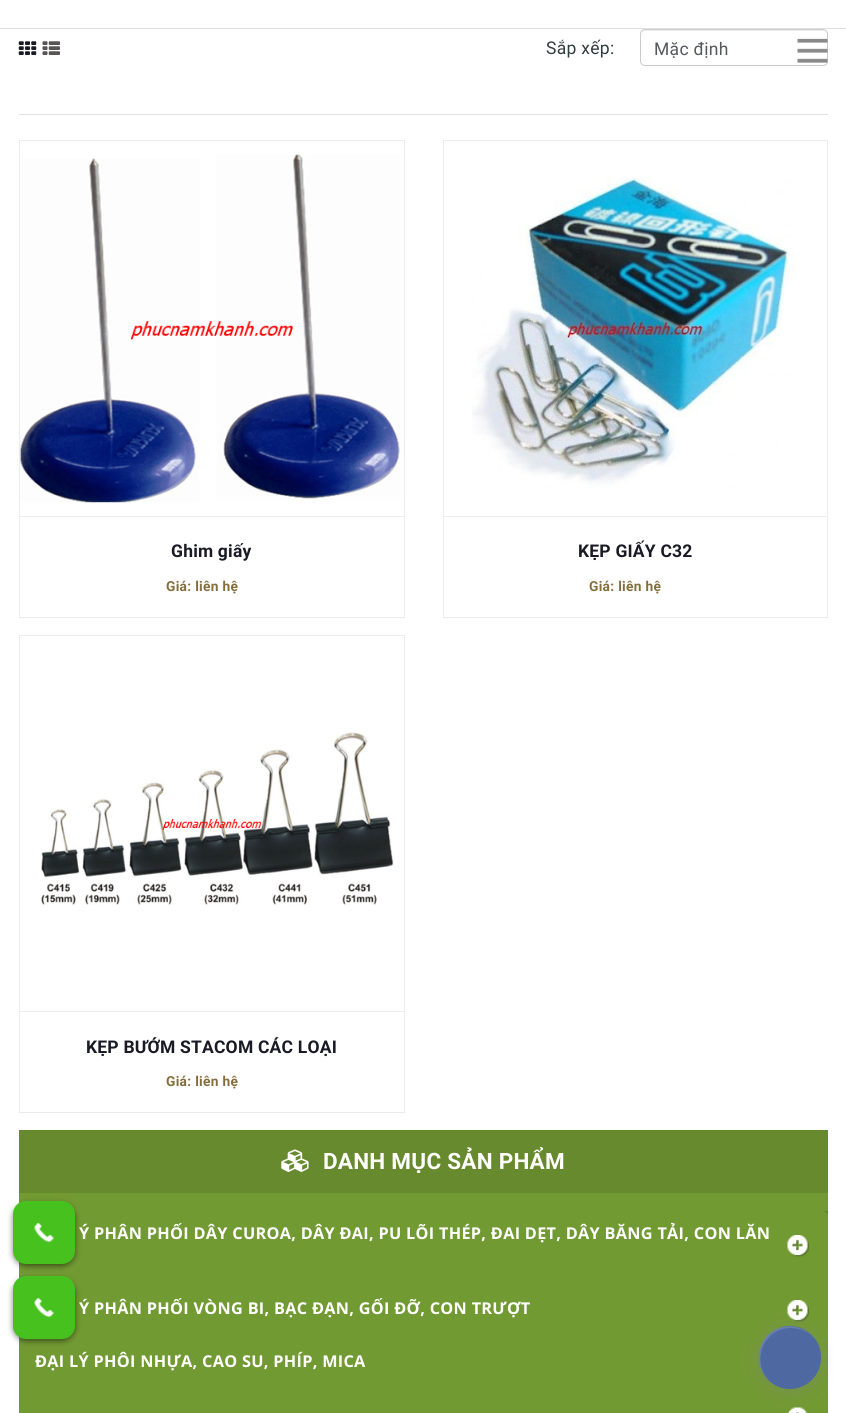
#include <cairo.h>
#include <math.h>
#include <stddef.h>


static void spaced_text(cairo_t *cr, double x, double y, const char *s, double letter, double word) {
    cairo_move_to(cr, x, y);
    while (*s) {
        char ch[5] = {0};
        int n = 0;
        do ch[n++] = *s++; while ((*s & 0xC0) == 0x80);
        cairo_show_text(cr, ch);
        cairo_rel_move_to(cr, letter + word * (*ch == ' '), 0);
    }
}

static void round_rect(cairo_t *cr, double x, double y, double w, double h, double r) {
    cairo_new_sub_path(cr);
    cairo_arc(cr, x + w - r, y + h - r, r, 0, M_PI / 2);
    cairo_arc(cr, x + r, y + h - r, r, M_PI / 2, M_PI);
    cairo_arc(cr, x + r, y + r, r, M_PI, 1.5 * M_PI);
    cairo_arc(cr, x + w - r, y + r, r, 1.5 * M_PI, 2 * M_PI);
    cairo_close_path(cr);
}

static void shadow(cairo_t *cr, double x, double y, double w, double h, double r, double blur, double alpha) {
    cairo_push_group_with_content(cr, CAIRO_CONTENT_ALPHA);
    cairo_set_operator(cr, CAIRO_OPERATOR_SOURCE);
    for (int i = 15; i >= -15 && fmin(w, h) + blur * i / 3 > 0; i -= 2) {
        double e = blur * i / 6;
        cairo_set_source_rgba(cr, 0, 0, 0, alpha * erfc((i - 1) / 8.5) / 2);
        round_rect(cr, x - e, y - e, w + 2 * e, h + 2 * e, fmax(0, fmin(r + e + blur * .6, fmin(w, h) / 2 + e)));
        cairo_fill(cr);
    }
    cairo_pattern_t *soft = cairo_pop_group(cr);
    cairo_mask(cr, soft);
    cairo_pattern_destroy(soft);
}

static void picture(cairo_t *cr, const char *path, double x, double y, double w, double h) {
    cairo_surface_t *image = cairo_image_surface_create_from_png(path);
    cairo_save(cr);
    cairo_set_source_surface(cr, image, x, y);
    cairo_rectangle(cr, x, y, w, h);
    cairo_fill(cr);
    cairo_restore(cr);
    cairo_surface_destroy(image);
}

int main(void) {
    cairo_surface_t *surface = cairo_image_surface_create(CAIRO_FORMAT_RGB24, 846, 1413);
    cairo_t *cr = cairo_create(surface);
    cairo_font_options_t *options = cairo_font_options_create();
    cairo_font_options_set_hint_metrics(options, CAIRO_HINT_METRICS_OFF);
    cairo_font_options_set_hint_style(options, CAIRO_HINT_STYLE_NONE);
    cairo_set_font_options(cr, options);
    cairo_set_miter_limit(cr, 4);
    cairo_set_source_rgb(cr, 1, 1, 1);
    cairo_paint(cr);
    cairo_set_source_rgb(cr, 0.882, 0.882, 0.882);
    cairo_rectangle(cr, 0, 28, 846, 1);
    cairo_fill(cr);
    cairo_set_source_rgb(cr, 0.925, 0.925, 0.925);
    cairo_new_path(cr);
    cairo_move_to(cr, 645, 31);
    cairo_line_to(cr, 822, 31);
    cairo_curve_to(cr, 825, 31, 826, 33, 826, 35);
    cairo_curve_to(cr, 826, 32, 825, 30, 822, 30);
    cairo_line_to(cr, 644, 30);
    cairo_curve_to(cr, 642, 31, 641, 33, 641, 35);
    cairo_curve_to(cr, 641, 33, 643, 31, 645, 31);
    cairo_close_path(cr);
    cairo_fill(cr);
    round_rect(cr, 640.5, 29.5, 187, 36, 4.5);
    cairo_set_source_rgb(cr, 0.8, 0.8, 0.8);
    cairo_set_line_width(cr, 1);
    cairo_stroke(cr);
    picture(cr, "img1.png", 797, 38, 31, 25);
    cairo_set_source_rgb(cr, 0.882, 0.882, 0.882);
    cairo_rectangle(cr, 19, 114, 809, 1);
    cairo_fill(cr);
    picture(cr, "img2.png", 18, 41, 19, 14);
    picture(cr, "img3.png", 42, 41, 18, 14);
    cairo_select_font_face(cr, "Roboto", CAIRO_FONT_SLANT_NORMAL, CAIRO_FONT_WEIGHT_NORMAL);
    cairo_set_font_size(cr, 17.5);
    cairo_set_source_rgb(cr, 0.196, 0.235, 0.247);
    spaced_text(cr, 546, 54, "Sắp xếp:", 0.3, 0);
    cairo_set_source_rgb(cr, 0.333, 0.349, 0.361);
    spaced_text(cr, 654, 55, "Mặc định", 0.3, 0);
    cairo_rectangle(cr, 19.5, 140.5, 385, 477);
    cairo_set_source_rgb(cr, 0.922, 0.922, 0.922);
    cairo_stroke(cr);
    picture(cr, "img4.png", 20, 154, 381, 349);
    cairo_rectangle(cr, 20, 516, 384, 1);
    cairo_fill(cr);
    cairo_select_font_face(cr, "Roboto", CAIRO_FONT_SLANT_NORMAL, CAIRO_FONT_WEIGHT_BOLD);
    cairo_set_source_rgb(cr, 0.102, 0.102, 0.149);
    spaced_text(cr, 171, 557, "Ghim giấy", 0.2, 0);
    cairo_set_font_size(cr, 13.75);
    cairo_set_source_rgb(cr, 0.522, 0.431, 0.235);
    spaced_text(cr, 166, 591, "Giá: liên hệ", 0.3, 0);
    cairo_rectangle(cr, 443.5, 140.5, 384, 477);
    cairo_set_source_rgb(cr, 0.922, 0.922, 0.922);
    cairo_stroke(cr);
    picture(cr, "img5.png", 472, 176, 323, 312);
    cairo_rectangle(cr, 444, 516, 382, 1);
    cairo_fill(cr);
    cairo_set_font_size(cr, 17.5);
    cairo_set_source_rgb(cr, 0.102, 0.102, 0.149);
    spaced_text(cr, 578, 557, "KẸP GIẤY C32", 0.2, 0);
    cairo_set_font_size(cr, 13.75);
    cairo_set_source_rgb(cr, 0.522, 0.431, 0.235);
    spaced_text(cr, 589, 591, "Giá: liên hệ", 0.3, 0);
    cairo_rectangle(cr, 19.5, 635.5, 385, 477);
    cairo_set_source_rgb(cr, 0.922, 0.922, 0.922);
    cairo_stroke(cr);
    picture(cr, "img6.png", 41, 732, 353, 173);
    cairo_rectangle(cr, 20, 1011, 384, 1);
    cairo_fill(cr);
    cairo_set_font_size(cr, 17.5);
    cairo_set_source_rgb(cr, 0.102, 0.102, 0.149);
    spaced_text(cr, 86, 1053, "KẸP BƯỚM STACOM CÁC LOẠI", 0.2, 0);
    cairo_set_font_size(cr, 13.75);
    cairo_set_source_rgb(cr, 0.522, 0.431, 0.235);
    spaced_text(cr, 166, 1086, "Giá: liên hệ", 0.3, 0);
    cairo_set_source_rgb(cr, 0.447, 0.604, 0.2);
    cairo_rectangle(cr, 19, 1193, 809, 23);
    cairo_fill(cr);
    cairo_set_source_rgb(cr, 0.4, 0.541, 0.176);
    cairo_rectangle(cr, 19, 1130, 809, 63);
    cairo_fill(cr);
    picture(cr, "img7.png", 281, 1149, 28, 23);
    cairo_set_font_size(cr, 22.5);
    cairo_set_source_rgb(cr, 1, 1, 1);
    spaced_text(cr, 323, 1169, "DANH MỤC SẢN PHẨM", 0.25, 0);
    cairo_save(cr);
    cairo_rectangle(cr, 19, 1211, 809, 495);
    cairo_clip(cr);
    cairo_set_source_rgb(cr, 0, 0, 0);
    shadow(cr, 19, 1211, 809, 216, 5, 3, 0.6);
    cairo_restore(cr);
    cairo_set_source_rgb(cr, 0.447, 0.604, 0.2);
    cairo_new_path(cr);
    cairo_move_to(cr, 24, 1211);
    cairo_line_to(cr, 823, 1211);
    cairo_curve_to(cr, 826, 1211, 828, 1213, 828, 1216);
    cairo_line_to(cr, 828, 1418);
    cairo_line_to(cr, 19, 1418);
    cairo_line_to(cr, 19, 1216);
    cairo_curve_to(cr, 19, 1213, 21, 1211, 24, 1211);
    cairo_close_path(cr);
    cairo_fill(cr);
    picture(cr, "img8.png", 787, 1235, 22, 22);
    cairo_select_font_face(cr, "Open Sans", CAIRO_FONT_SLANT_NORMAL, CAIRO_FONT_WEIGHT_BOLD);
    cairo_set_font_size(cr, 16.25);
    cairo_set_source_rgb(cr, 1, 1, 1);
    spaced_text(cr, 79, 1239, "Ý PHÂN PHỐI DÂY CUROA, DÂY ĐAI, PU LÕI THÉP, ĐAI DẸT, DÂY BĂNG TẢI, CON LĂN", 0.3, 0);
    picture(cr, "img8.png", 787, 1300, 22, 22);
    spaced_text(cr, 79, 1314, "Ý PHÂN PHỐI VÒNG BI, BẠC ĐẠN, GỐI ĐỠ, CON TRƯỢT", 0.3, 0);
    spaced_text(cr, 35, 1367, "ĐẠI LÝ PHÔI NHỰA, CAO SU, PHÍP, MICA", 0.3, 0);
    picture(cr, "img9.png", 787, 1407, 21, 6);
    cairo_set_source_rgb(cr, 0, 0, 0);
    shadow(cr, 13, 1204, 62, 62, 13, 3, 0.5);
    cairo_set_source_rgb(cr, 0.275, 0.757, 0.118);
    round_rect(cr, 13, 1201, 62, 63, 13);
    cairo_fill(cr);
    picture(cr, "img10.png", 34, 1223, 20, 20);
    cairo_set_source_rgb(cr, 0, 0, 0);
    shadow(cr, 13, 1279, 62, 62, 13, 3, 0.5);
    cairo_set_source_rgb(cr, 0.275, 0.757, 0.118);
    round_rect(cr, 13, 1276, 62, 63, 13);
    cairo_fill(cr);
    picture(cr, "img10.png", 34, 1298, 20, 20);
    cairo_set_source_rgb(cr, 0.502, 0.502, 0.502);
    shadow(cr, 759, 1329, 62, 62, 31, 7, 0.4);
    cairo_set_source_rgb(cr, 0.306, 0.412, 0.635);
    round_rect(cr, 759, 1326, 62, 63, 31);
    cairo_fill(cr);
    cairo_set_source_rgba(cr, 1, 1, 1, 0.15);
    cairo_new_path(cr);
    cairo_move_to(cr, 791, 1328);
    cairo_curve_to(cr, 801, 1328, 809, 1332, 815, 1339);
    cairo_curve_to(cr, 804, 1324, 781, 1322, 768, 1335);
    cairo_curve_to(cr, 755, 1348, 756, 1370, 770, 1381);
    cairo_curve_to(cr, 750, 1362, 763, 1328, 791, 1328);
    cairo_close_path(cr);
    cairo_fill(cr);
    cairo_surface_write_to_png(surface, "page.png");
    cairo_font_options_destroy(options);
    cairo_destroy(cr);
    cairo_surface_destroy(surface);
    return 0;
}
